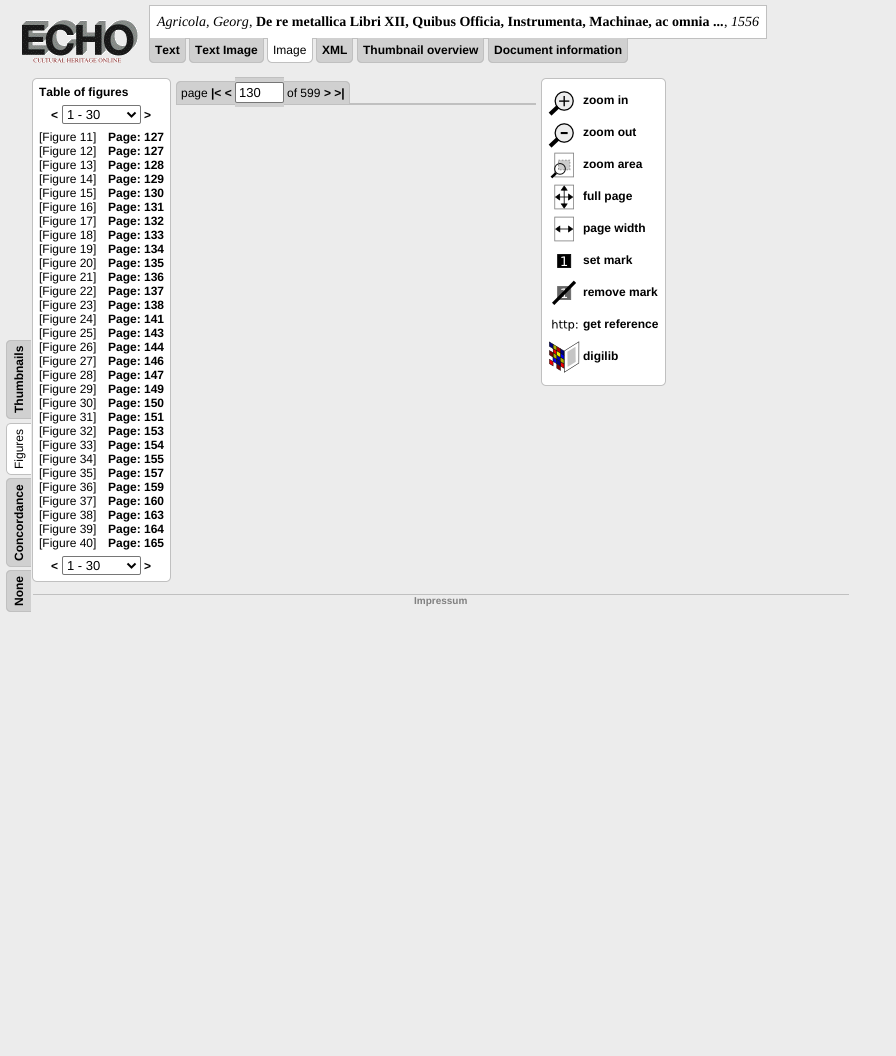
#include <cairo.h>
#include <math.h>
#include <stddef.h>


static void round_rect(cairo_t *cr, double x, double y, double w, double h, double r) {
    cairo_new_sub_path(cr);
    cairo_arc(cr, x + w - r, y + h - r, r, 0, M_PI / 2);
    cairo_arc(cr, x + r, y + h - r, r, M_PI / 2, M_PI);
    cairo_arc(cr, x + r, y + r, r, M_PI, 1.5 * M_PI);
    cairo_arc(cr, x + w - r, y + r, r, 1.5 * M_PI, 2 * M_PI);
    cairo_close_path(cr);
}

static void picture(cairo_t *cr, const char *path, double x, double y, double w, double h) {
    cairo_surface_t *image = cairo_image_surface_create_from_png(path);
    cairo_save(cr);
    cairo_set_source_surface(cr, image, x, y);
    cairo_rectangle(cr, x, y, w, h);
    cairo_fill(cr);
    cairo_restore(cr);
    cairo_surface_destroy(image);
}

int main(void) {
    cairo_surface_t *surface = cairo_image_surface_create(CAIRO_FORMAT_RGB24, 896, 1056);
    cairo_t *cr = cairo_create(surface);
    cairo_font_options_t *options = cairo_font_options_create();
    cairo_font_options_set_hint_metrics(options, CAIRO_HINT_METRICS_OFF);
    cairo_font_options_set_hint_style(options, CAIRO_HINT_STYLE_NONE);
    cairo_set_font_options(cr, options);
    cairo_set_miter_limit(cr, 4);
    cairo_set_source_rgb(cr, 0.922, 0.922, 0.922);
    cairo_paint(cr);
    picture(cr, "img1.png", 22, 20, 116, 43);
    cairo_set_source_rgb(cr, 1, 1, 1);
    cairo_rectangle(cr, 149.5, 5.5, 617, 33);
    cairo_fill_preserve(cr);
    cairo_set_source_rgb(cr, 0.753, 0.753, 0.753);
    cairo_set_line_width(cr, 1);
    cairo_stroke(cr);
    cairo_select_font_face(cr, "Liberation Serif", CAIRO_FONT_SLANT_ITALIC, CAIRO_FONT_WEIGHT_NORMAL);
    cairo_set_font_size(cr, 14);
    cairo_set_source_rgb(cr, 0, 0, 0);
    cairo_move_to(cr, 157, 26);
    cairo_show_text(cr, "Agricola, Georg");
    cairo_select_font_face(cr, "Liberation Serif", CAIRO_FONT_SLANT_NORMAL, CAIRO_FONT_WEIGHT_NORMAL);
    cairo_move_to(cr, 249, 26);
    cairo_show_text(cr, ",");
    cairo_select_font_face(cr, "Liberation Serif", CAIRO_FONT_SLANT_NORMAL, CAIRO_FONT_WEIGHT_BOLD);
    cairo_move_to(cr, 256, 26);
    cairo_show_text(cr, "De re metallica Libri XII, Quibus Officia, Instrumenta, Machinae, ac omnia ...");
    cairo_select_font_face(cr, "Liberation Serif", CAIRO_FONT_SLANT_NORMAL, CAIRO_FONT_WEIGHT_NORMAL);
    cairo_move_to(cr, 724, 26);
    cairo_show_text(cr, ",");
    cairo_select_font_face(cr, "Liberation Serif", CAIRO_FONT_SLANT_ITALIC, CAIRO_FONT_WEIGHT_NORMAL);
    cairo_move_to(cr, 731, 26);
    cairo_show_text(cr, "1556");
    cairo_set_source_rgb(cr, 0.816, 0.816, 0.816);
    cairo_new_path(cr);
    cairo_move_to(cr, 149, 38);
    cairo_line_to(cr, 186, 38);
    cairo_line_to(cr, 186, 58);
    cairo_curve_to(cr, 186, 61, 184, 63, 181, 63);
    cairo_line_to(cr, 154, 63);
    cairo_curve_to(cr, 151, 63, 149, 61, 149, 58);
    cairo_close_path(cr);
    cairo_fill(cr);
    cairo_set_source_rgb(cr, 0.753, 0.753, 0.753);
    cairo_set_fill_rule(cr, CAIRO_FILL_RULE_EVEN_ODD);
    cairo_new_path(cr);
    cairo_move_to(cr, 149, 38);
    cairo_line_to(cr, 186, 38);
    cairo_line_to(cr, 186, 58);
    cairo_curve_to(cr, 186, 61, 184, 63, 181, 63);
    cairo_line_to(cr, 154, 63);
    cairo_curve_to(cr, 151, 63, 149, 61, 149, 58);
    cairo_close_path(cr);
    cairo_move_to(cr, 150, 38);
    cairo_line_to(cr, 185, 38);
    cairo_line_to(cr, 185, 58);
    cairo_curve_to(cr, 185, 60, 183, 62, 181, 62);
    cairo_line_to(cr, 154, 62);
    cairo_curve_to(cr, 152, 62, 150, 60, 150, 58);
    cairo_close_path(cr);
    cairo_fill(cr);
    cairo_select_font_face(cr, "Liberation Sans", CAIRO_FONT_SLANT_NORMAL, CAIRO_FONT_WEIGHT_BOLD);
    cairo_set_font_size(cr, 12);
    cairo_set_source_rgb(cr, 0, 0, 0);
    cairo_move_to(cr, 155, 54);
    cairo_show_text(cr, "Text");
    cairo_set_source_rgb(cr, 0.816, 0.816, 0.816);
    cairo_new_path(cr);
    cairo_move_to(cr, 189, 38);
    cairo_line_to(cr, 264, 38);
    cairo_line_to(cr, 264, 58);
    cairo_curve_to(cr, 264, 61, 262, 63, 259, 63);
    cairo_line_to(cr, 194, 63);
    cairo_curve_to(cr, 191, 63, 189, 61, 189, 58);
    cairo_close_path(cr);
    cairo_fill(cr);
    cairo_set_source_rgb(cr, 0.753, 0.753, 0.753);
    cairo_new_path(cr);
    cairo_move_to(cr, 189, 38);
    cairo_line_to(cr, 264, 38);
    cairo_line_to(cr, 264, 58);
    cairo_curve_to(cr, 264, 61, 262, 63, 259, 63);
    cairo_line_to(cr, 194, 63);
    cairo_curve_to(cr, 191, 63, 189, 61, 189, 58);
    cairo_close_path(cr);
    cairo_move_to(cr, 190, 38);
    cairo_line_to(cr, 263, 38);
    cairo_line_to(cr, 263, 58);
    cairo_curve_to(cr, 263, 60, 261, 62, 259, 62);
    cairo_line_to(cr, 194, 62);
    cairo_curve_to(cr, 192, 62, 190, 60, 190, 58);
    cairo_close_path(cr);
    cairo_fill(cr);
    cairo_set_source_rgb(cr, 0, 0, 0);
    cairo_move_to(cr, 195, 54);
    cairo_show_text(cr, "Text Image");
    cairo_set_source_rgb(cr, 1, 1, 1);
    cairo_new_path(cr);
    cairo_move_to(cr, 267, 38);
    cairo_line_to(cr, 313, 38);
    cairo_line_to(cr, 313, 58);
    cairo_curve_to(cr, 313, 61, 311, 63, 308, 63);
    cairo_line_to(cr, 272, 63);
    cairo_curve_to(cr, 269, 63, 267, 61, 267, 58);
    cairo_close_path(cr);
    cairo_fill(cr);
    cairo_set_source_rgb(cr, 0.753, 0.753, 0.753);
    cairo_new_path(cr);
    cairo_move_to(cr, 267, 38);
    cairo_line_to(cr, 313, 38);
    cairo_line_to(cr, 313, 58);
    cairo_curve_to(cr, 313, 61, 311, 63, 308, 63);
    cairo_line_to(cr, 272, 63);
    cairo_curve_to(cr, 269, 63, 267, 61, 267, 58);
    cairo_close_path(cr);
    cairo_move_to(cr, 268, 38);
    cairo_line_to(cr, 312, 38);
    cairo_line_to(cr, 312, 58);
    cairo_curve_to(cr, 312, 60, 310, 62, 308, 62);
    cairo_line_to(cr, 272, 62);
    cairo_curve_to(cr, 270, 62, 268, 60, 268, 58);
    cairo_close_path(cr);
    cairo_fill(cr);
    cairo_select_font_face(cr, "Liberation Sans", CAIRO_FONT_SLANT_NORMAL, CAIRO_FONT_WEIGHT_NORMAL);
    cairo_set_source_rgb(cr, 0, 0, 0);
    cairo_move_to(cr, 273, 54);
    cairo_show_text(cr, "Image");
    cairo_set_source_rgb(cr, 0.816, 0.816, 0.816);
    cairo_new_path(cr);
    cairo_move_to(cr, 316, 38);
    cairo_line_to(cr, 353, 38);
    cairo_line_to(cr, 353, 58);
    cairo_curve_to(cr, 353, 61, 351, 63, 348, 63);
    cairo_line_to(cr, 321, 63);
    cairo_curve_to(cr, 318, 63, 316, 61, 316, 58);
    cairo_close_path(cr);
    cairo_fill(cr);
    cairo_set_source_rgb(cr, 0.753, 0.753, 0.753);
    cairo_new_path(cr);
    cairo_move_to(cr, 316, 38);
    cairo_line_to(cr, 353, 38);
    cairo_line_to(cr, 353, 58);
    cairo_curve_to(cr, 353, 61, 351, 63, 348, 63);
    cairo_line_to(cr, 321, 63);
    cairo_curve_to(cr, 318, 63, 316, 61, 316, 58);
    cairo_close_path(cr);
    cairo_move_to(cr, 317, 38);
    cairo_line_to(cr, 352, 38);
    cairo_line_to(cr, 352, 58);
    cairo_curve_to(cr, 352, 60, 350, 62, 348, 62);
    cairo_line_to(cr, 321, 62);
    cairo_curve_to(cr, 319, 62, 317, 60, 317, 58);
    cairo_close_path(cr);
    cairo_fill(cr);
    cairo_select_font_face(cr, "Liberation Sans", CAIRO_FONT_SLANT_NORMAL, CAIRO_FONT_WEIGHT_BOLD);
    cairo_set_source_rgb(cr, 0, 0, 0);
    cairo_move_to(cr, 322, 54);
    cairo_show_text(cr, "XML");
    cairo_set_source_rgb(cr, 0.816, 0.816, 0.816);
    cairo_new_path(cr);
    cairo_move_to(cr, 357, 38);
    cairo_line_to(cr, 484, 38);
    cairo_line_to(cr, 484, 58);
    cairo_curve_to(cr, 484, 61, 482, 63, 479, 63);
    cairo_line_to(cr, 362, 63);
    cairo_curve_to(cr, 359, 63, 357, 61, 357, 58);
    cairo_close_path(cr);
    cairo_fill(cr);
    cairo_set_source_rgb(cr, 0.753, 0.753, 0.753);
    cairo_new_path(cr);
    cairo_move_to(cr, 357, 38);
    cairo_line_to(cr, 484, 38);
    cairo_line_to(cr, 484, 58);
    cairo_curve_to(cr, 484, 61, 482, 63, 479, 63);
    cairo_line_to(cr, 362, 63);
    cairo_curve_to(cr, 359, 63, 357, 61, 357, 58);
    cairo_close_path(cr);
    cairo_move_to(cr, 358, 38);
    cairo_line_to(cr, 483, 38);
    cairo_line_to(cr, 483, 58);
    cairo_curve_to(cr, 483, 60, 481, 62, 479, 62);
    cairo_line_to(cr, 362, 62);
    cairo_curve_to(cr, 360, 62, 358, 60, 358, 58);
    cairo_close_path(cr);
    cairo_fill(cr);
    cairo_set_source_rgb(cr, 0, 0, 0);
    cairo_move_to(cr, 363, 54);
    cairo_show_text(cr, "Thumbnail overview");
    cairo_set_source_rgb(cr, 0.816, 0.816, 0.816);
    cairo_new_path(cr);
    cairo_move_to(cr, 488, 38);
    cairo_line_to(cr, 628, 38);
    cairo_line_to(cr, 628, 58);
    cairo_curve_to(cr, 628, 61, 626, 63, 623, 63);
    cairo_line_to(cr, 493, 63);
    cairo_curve_to(cr, 490, 63, 488, 61, 488, 58);
    cairo_close_path(cr);
    cairo_fill(cr);
    cairo_set_source_rgb(cr, 0.753, 0.753, 0.753);
    cairo_new_path(cr);
    cairo_move_to(cr, 488, 38);
    cairo_line_to(cr, 628, 38);
    cairo_line_to(cr, 628, 58);
    cairo_curve_to(cr, 628, 61, 626, 63, 623, 63);
    cairo_line_to(cr, 493, 63);
    cairo_curve_to(cr, 490, 63, 488, 61, 488, 58);
    cairo_close_path(cr);
    cairo_move_to(cr, 489, 38);
    cairo_line_to(cr, 627, 38);
    cairo_line_to(cr, 627, 58);
    cairo_curve_to(cr, 627, 60, 625, 62, 623, 62);
    cairo_line_to(cr, 493, 62);
    cairo_curve_to(cr, 491, 62, 489, 60, 489, 58);
    cairo_close_path(cr);
    cairo_fill(cr);
    cairo_set_source_rgb(cr, 0, 0, 0);
    cairo_move_to(cr, 494, 54);
    cairo_show_text(cr, "Document information");
    cairo_set_source_rgb(cr, 0.816, 0.816, 0.816);
    cairo_set_fill_rule(cr, CAIRO_FILL_RULE_WINDING);
    cairo_new_path(cr);
    cairo_move_to(cr, 6, 414);
    cairo_line_to(cr, 6, 345);
    cairo_curve_to(cr, 6, 342, 8, 340, 11, 340);
    cairo_line_to(cr, 31, 340);
    cairo_line_to(cr, 31, 419);
    cairo_line_to(cr, 11, 419);
    cairo_curve_to(cr, 8, 419, 6, 417, 6, 414);
    cairo_close_path(cr);
    cairo_fill(cr);
    cairo_set_source_rgb(cr, 0.753, 0.753, 0.753);
    cairo_set_fill_rule(cr, CAIRO_FILL_RULE_EVEN_ODD);
    cairo_new_path(cr);
    cairo_move_to(cr, 6, 414);
    cairo_line_to(cr, 6, 345);
    cairo_curve_to(cr, 6, 342, 8, 340, 11, 340);
    cairo_line_to(cr, 31, 340);
    cairo_line_to(cr, 31, 419);
    cairo_line_to(cr, 11, 419);
    cairo_curve_to(cr, 8, 419, 6, 417, 6, 414);
    cairo_close_path(cr);
    cairo_move_to(cr, 7, 414);
    cairo_line_to(cr, 7, 345);
    cairo_curve_to(cr, 7, 343, 9, 341, 11, 341);
    cairo_line_to(cr, 31, 341);
    cairo_line_to(cr, 31, 418);
    cairo_line_to(cr, 11, 418);
    cairo_curve_to(cr, 9, 418, 7, 416, 7, 414);
    cairo_close_path(cr);
    cairo_fill(cr);
    cairo_set_source_rgb(cr, 0, 0, 0);
    cairo_save(cr);
    cairo_translate(cr, 23, 413);
    cairo_rotate(cr, -90 * M_PI / 180);
    cairo_move_to(cr, 0, 0);
    cairo_show_text(cr, "Thumbnails");
    cairo_restore(cr);
    cairo_set_source_rgb(cr, 1, 1, 1);
    cairo_set_fill_rule(cr, CAIRO_FILL_RULE_WINDING);
    cairo_new_path(cr);
    cairo_move_to(cr, 6, 470);
    cairo_line_to(cr, 6, 428);
    cairo_curve_to(cr, 6, 425, 8, 423, 11, 423);
    cairo_line_to(cr, 31, 423);
    cairo_line_to(cr, 31, 475);
    cairo_line_to(cr, 11, 475);
    cairo_curve_to(cr, 8, 475, 6, 472, 6, 470);
    cairo_close_path(cr);
    cairo_fill(cr);
    cairo_set_source_rgb(cr, 0.753, 0.753, 0.753);
    cairo_set_fill_rule(cr, CAIRO_FILL_RULE_EVEN_ODD);
    cairo_new_path(cr);
    cairo_move_to(cr, 6, 470);
    cairo_line_to(cr, 6, 428);
    cairo_curve_to(cr, 6, 425, 8, 423, 11, 423);
    cairo_line_to(cr, 31, 423);
    cairo_line_to(cr, 31, 475);
    cairo_line_to(cr, 11, 475);
    cairo_curve_to(cr, 8, 475, 6, 472, 6, 470);
    cairo_close_path(cr);
    cairo_move_to(cr, 7, 470);
    cairo_line_to(cr, 7, 428);
    cairo_curve_to(cr, 7, 425, 9, 424, 11, 424);
    cairo_line_to(cr, 31, 424);
    cairo_line_to(cr, 31, 474);
    cairo_line_to(cr, 11, 474);
    cairo_curve_to(cr, 9, 474, 7, 472, 7, 470);
    cairo_close_path(cr);
    cairo_fill(cr);
    cairo_select_font_face(cr, "Liberation Sans", CAIRO_FONT_SLANT_NORMAL, CAIRO_FONT_WEIGHT_NORMAL);
    cairo_set_source_rgb(cr, 0, 0, 0);
    cairo_save(cr);
    cairo_translate(cr, 23, 469);
    cairo_rotate(cr, -90 * M_PI / 180);
    cairo_move_to(cr, 0, 0);
    cairo_show_text(cr, "Figures");
    cairo_restore(cr);
    cairo_set_source_rgb(cr, 0.816, 0.816, 0.816);
    cairo_set_fill_rule(cr, CAIRO_FILL_RULE_WINDING);
    cairo_new_path(cr);
    cairo_move_to(cr, 6, 562);
    cairo_line_to(cr, 6, 483);
    cairo_curve_to(cr, 6, 480, 8, 478, 11, 478);
    cairo_line_to(cr, 31, 478);
    cairo_line_to(cr, 31, 567);
    cairo_line_to(cr, 11, 567);
    cairo_curve_to(cr, 8, 567, 6, 564, 6, 562);
    cairo_close_path(cr);
    cairo_fill(cr);
    cairo_set_source_rgb(cr, 0.753, 0.753, 0.753);
    cairo_set_fill_rule(cr, CAIRO_FILL_RULE_EVEN_ODD);
    cairo_new_path(cr);
    cairo_move_to(cr, 6, 562);
    cairo_line_to(cr, 6, 483);
    cairo_curve_to(cr, 6, 480, 8, 478, 11, 478);
    cairo_line_to(cr, 31, 478);
    cairo_line_to(cr, 31, 567);
    cairo_line_to(cr, 11, 567);
    cairo_curve_to(cr, 8, 567, 6, 564, 6, 562);
    cairo_close_path(cr);
    cairo_move_to(cr, 7, 562);
    cairo_line_to(cr, 7, 483);
    cairo_curve_to(cr, 7, 481, 9, 479, 11, 479);
    cairo_line_to(cr, 31, 479);
    cairo_line_to(cr, 31, 566);
    cairo_line_to(cr, 11, 566);
    cairo_curve_to(cr, 9, 566, 7, 564, 7, 562);
    cairo_close_path(cr);
    cairo_fill(cr);
    cairo_select_font_face(cr, "Liberation Sans", CAIRO_FONT_SLANT_NORMAL, CAIRO_FONT_WEIGHT_BOLD);
    cairo_set_source_rgb(cr, 0, 0, 0);
    cairo_save(cr);
    cairo_translate(cr, 23, 561);
    cairo_rotate(cr, -90 * M_PI / 180);
    cairo_move_to(cr, 0, 0);
    cairo_show_text(cr, "Concordance");
    cairo_restore(cr);
    cairo_set_source_rgb(cr, 0.816, 0.816, 0.816);
    cairo_set_fill_rule(cr, CAIRO_FILL_RULE_WINDING);
    cairo_new_path(cr);
    cairo_move_to(cr, 6, 607);
    cairo_line_to(cr, 6, 575);
    cairo_curve_to(cr, 6, 572, 8, 570, 11, 570);
    cairo_line_to(cr, 31, 570);
    cairo_line_to(cr, 31, 612);
    cairo_line_to(cr, 11, 612);
    cairo_curve_to(cr, 8, 612, 6, 610, 6, 607);
    cairo_close_path(cr);
    cairo_fill(cr);
    cairo_set_source_rgb(cr, 0.753, 0.753, 0.753);
    cairo_set_fill_rule(cr, CAIRO_FILL_RULE_EVEN_ODD);
    cairo_new_path(cr);
    cairo_move_to(cr, 6, 607);
    cairo_line_to(cr, 6, 575);
    cairo_curve_to(cr, 6, 572, 8, 570, 11, 570);
    cairo_line_to(cr, 31, 570);
    cairo_line_to(cr, 31, 612);
    cairo_line_to(cr, 11, 612);
    cairo_curve_to(cr, 8, 612, 6, 610, 6, 607);
    cairo_close_path(cr);
    cairo_move_to(cr, 7, 607);
    cairo_line_to(cr, 7, 575);
    cairo_curve_to(cr, 7, 573, 9, 571, 11, 571);
    cairo_line_to(cr, 31, 571);
    cairo_line_to(cr, 31, 611);
    cairo_line_to(cr, 11, 611);
    cairo_curve_to(cr, 9, 611, 7, 609, 7, 607);
    cairo_close_path(cr);
    cairo_fill(cr);
    cairo_set_source_rgb(cr, 0, 0, 0);
    cairo_save(cr);
    cairo_translate(cr, 23, 606);
    cairo_rotate(cr, -90 * M_PI / 180);
    cairo_move_to(cr, 0, 0);
    cairo_show_text(cr, "None");
    cairo_restore(cr);
    cairo_set_source_rgb(cr, 1, 1, 1);
    round_rect(cr, 32.5, 78.5, 138, 503, 4.5);
    cairo_fill_preserve(cr);
    cairo_set_source_rgb(cr, 0.753, 0.753, 0.753);
    cairo_stroke(cr);
    cairo_set_source_rgb(cr, 0, 0, 0);
    cairo_move_to(cr, 39, 96);
    cairo_show_text(cr, "Table of figures");
    cairo_move_to(cr, 51, 119);
    cairo_show_text(cr, "<");
    round_rect(cr, 62.5, 105.5, 78, 18, 1.5);
    cairo_set_source_rgb(cr, 0.463, 0.463, 0.463);
    cairo_stroke(cr);
    cairo_new_path(cr);
    cairo_move_to(cr, 127.5, 112.5);
    cairo_line_to(cr, 131.5, 116.5);
    cairo_line_to(cr, 135.5, 112.5);
    cairo_set_source_rgb(cr, 0, 0, 0);
    cairo_set_line_width(cr, 2);
    cairo_stroke(cr);
    cairo_select_font_face(cr, "Liberation Sans", CAIRO_FONT_SLANT_NORMAL, CAIRO_FONT_WEIGHT_NORMAL);
    cairo_set_font_size(cr, 13);
    cairo_move_to(cr, 67, 119);
    cairo_show_text(cr, "1 - 30");
    cairo_select_font_face(cr, "Liberation Sans", CAIRO_FONT_SLANT_NORMAL, CAIRO_FONT_WEIGHT_BOLD);
    cairo_set_font_size(cr, 12);
    cairo_move_to(cr, 144, 119);
    cairo_show_text(cr, ">");
    cairo_select_font_face(cr, "Liberation Sans", CAIRO_FONT_SLANT_NORMAL, CAIRO_FONT_WEIGHT_NORMAL);
    cairo_move_to(cr, 39, 141);
    cairo_show_text(cr, "[Figure 11]");
    cairo_select_font_face(cr, "Liberation Sans", CAIRO_FONT_SLANT_NORMAL, CAIRO_FONT_WEIGHT_BOLD);
    cairo_move_to(cr, 108, 141);
    cairo_show_text(cr, "Page: 127");
    cairo_select_font_face(cr, "Liberation Sans", CAIRO_FONT_SLANT_NORMAL, CAIRO_FONT_WEIGHT_NORMAL);
    cairo_move_to(cr, 39, 155);
    cairo_show_text(cr, "[Figure 12]");
    cairo_select_font_face(cr, "Liberation Sans", CAIRO_FONT_SLANT_NORMAL, CAIRO_FONT_WEIGHT_BOLD);
    cairo_move_to(cr, 108, 155);
    cairo_show_text(cr, "Page: 127");
    cairo_select_font_face(cr, "Liberation Sans", CAIRO_FONT_SLANT_NORMAL, CAIRO_FONT_WEIGHT_NORMAL);
    cairo_move_to(cr, 39, 169);
    cairo_show_text(cr, "[Figure 13]");
    cairo_select_font_face(cr, "Liberation Sans", CAIRO_FONT_SLANT_NORMAL, CAIRO_FONT_WEIGHT_BOLD);
    cairo_move_to(cr, 108, 169);
    cairo_show_text(cr, "Page: 128");
    cairo_select_font_face(cr, "Liberation Sans", CAIRO_FONT_SLANT_NORMAL, CAIRO_FONT_WEIGHT_NORMAL);
    cairo_move_to(cr, 39, 183);
    cairo_show_text(cr, "[Figure 14]");
    cairo_select_font_face(cr, "Liberation Sans", CAIRO_FONT_SLANT_NORMAL, CAIRO_FONT_WEIGHT_BOLD);
    cairo_move_to(cr, 108, 183);
    cairo_show_text(cr, "Page: 129");
    cairo_select_font_face(cr, "Liberation Sans", CAIRO_FONT_SLANT_NORMAL, CAIRO_FONT_WEIGHT_NORMAL);
    cairo_move_to(cr, 39, 197);
    cairo_show_text(cr, "[Figure 15]");
    cairo_select_font_face(cr, "Liberation Sans", CAIRO_FONT_SLANT_NORMAL, CAIRO_FONT_WEIGHT_BOLD);
    cairo_move_to(cr, 108, 197);
    cairo_show_text(cr, "Page: 130");
    cairo_select_font_face(cr, "Liberation Sans", CAIRO_FONT_SLANT_NORMAL, CAIRO_FONT_WEIGHT_NORMAL);
    cairo_move_to(cr, 39, 211);
    cairo_show_text(cr, "[Figure 16]");
    cairo_select_font_face(cr, "Liberation Sans", CAIRO_FONT_SLANT_NORMAL, CAIRO_FONT_WEIGHT_BOLD);
    cairo_move_to(cr, 108, 211);
    cairo_show_text(cr, "Page: 131");
    cairo_select_font_face(cr, "Liberation Sans", CAIRO_FONT_SLANT_NORMAL, CAIRO_FONT_WEIGHT_NORMAL);
    cairo_move_to(cr, 39, 225);
    cairo_show_text(cr, "[Figure 17]");
    cairo_select_font_face(cr, "Liberation Sans", CAIRO_FONT_SLANT_NORMAL, CAIRO_FONT_WEIGHT_BOLD);
    cairo_move_to(cr, 108, 225);
    cairo_show_text(cr, "Page: 132");
    cairo_select_font_face(cr, "Liberation Sans", CAIRO_FONT_SLANT_NORMAL, CAIRO_FONT_WEIGHT_NORMAL);
    cairo_move_to(cr, 39, 239);
    cairo_show_text(cr, "[Figure 18]");
    cairo_select_font_face(cr, "Liberation Sans", CAIRO_FONT_SLANT_NORMAL, CAIRO_FONT_WEIGHT_BOLD);
    cairo_move_to(cr, 108, 239);
    cairo_show_text(cr, "Page: 133");
    cairo_select_font_face(cr, "Liberation Sans", CAIRO_FONT_SLANT_NORMAL, CAIRO_FONT_WEIGHT_NORMAL);
    cairo_move_to(cr, 39, 253);
    cairo_show_text(cr, "[Figure 19]");
    cairo_select_font_face(cr, "Liberation Sans", CAIRO_FONT_SLANT_NORMAL, CAIRO_FONT_WEIGHT_BOLD);
    cairo_move_to(cr, 108, 253);
    cairo_show_text(cr, "Page: 134");
    cairo_select_font_face(cr, "Liberation Sans", CAIRO_FONT_SLANT_NORMAL, CAIRO_FONT_WEIGHT_NORMAL);
    cairo_move_to(cr, 39, 267);
    cairo_show_text(cr, "[Figure 20]");
    cairo_select_font_face(cr, "Liberation Sans", CAIRO_FONT_SLANT_NORMAL, CAIRO_FONT_WEIGHT_BOLD);
    cairo_move_to(cr, 108, 267);
    cairo_show_text(cr, "Page: 135");
    cairo_select_font_face(cr, "Liberation Sans", CAIRO_FONT_SLANT_NORMAL, CAIRO_FONT_WEIGHT_NORMAL);
    cairo_move_to(cr, 39, 281);
    cairo_show_text(cr, "[Figure 21]");
    cairo_select_font_face(cr, "Liberation Sans", CAIRO_FONT_SLANT_NORMAL, CAIRO_FONT_WEIGHT_BOLD);
    cairo_move_to(cr, 108, 281);
    cairo_show_text(cr, "Page: 136");
    cairo_select_font_face(cr, "Liberation Sans", CAIRO_FONT_SLANT_NORMAL, CAIRO_FONT_WEIGHT_NORMAL);
    cairo_move_to(cr, 39, 295);
    cairo_show_text(cr, "[Figure 22]");
    cairo_select_font_face(cr, "Liberation Sans", CAIRO_FONT_SLANT_NORMAL, CAIRO_FONT_WEIGHT_BOLD);
    cairo_move_to(cr, 108, 295);
    cairo_show_text(cr, "Page: 137");
    cairo_select_font_face(cr, "Liberation Sans", CAIRO_FONT_SLANT_NORMAL, CAIRO_FONT_WEIGHT_NORMAL);
    cairo_move_to(cr, 39, 309);
    cairo_show_text(cr, "[Figure 23]");
    cairo_select_font_face(cr, "Liberation Sans", CAIRO_FONT_SLANT_NORMAL, CAIRO_FONT_WEIGHT_BOLD);
    cairo_move_to(cr, 108, 309);
    cairo_show_text(cr, "Page: 138");
    cairo_select_font_face(cr, "Liberation Sans", CAIRO_FONT_SLANT_NORMAL, CAIRO_FONT_WEIGHT_NORMAL);
    cairo_move_to(cr, 39, 323);
    cairo_show_text(cr, "[Figure 24]");
    cairo_select_font_face(cr, "Liberation Sans", CAIRO_FONT_SLANT_NORMAL, CAIRO_FONT_WEIGHT_BOLD);
    cairo_move_to(cr, 108, 323);
    cairo_show_text(cr, "Page: 141");
    cairo_select_font_face(cr, "Liberation Sans", CAIRO_FONT_SLANT_NORMAL, CAIRO_FONT_WEIGHT_NORMAL);
    cairo_move_to(cr, 39, 337);
    cairo_show_text(cr, "[Figure 25]");
    cairo_select_font_face(cr, "Liberation Sans", CAIRO_FONT_SLANT_NORMAL, CAIRO_FONT_WEIGHT_BOLD);
    cairo_move_to(cr, 108, 337);
    cairo_show_text(cr, "Page: 143");
    cairo_select_font_face(cr, "Liberation Sans", CAIRO_FONT_SLANT_NORMAL, CAIRO_FONT_WEIGHT_NORMAL);
    cairo_move_to(cr, 39, 351);
    cairo_show_text(cr, "[Figure 26]");
    cairo_select_font_face(cr, "Liberation Sans", CAIRO_FONT_SLANT_NORMAL, CAIRO_FONT_WEIGHT_BOLD);
    cairo_move_to(cr, 108, 351);
    cairo_show_text(cr, "Page: 144");
    cairo_select_font_face(cr, "Liberation Sans", CAIRO_FONT_SLANT_NORMAL, CAIRO_FONT_WEIGHT_NORMAL);
    cairo_move_to(cr, 39, 365);
    cairo_show_text(cr, "[Figure 27]");
    cairo_select_font_face(cr, "Liberation Sans", CAIRO_FONT_SLANT_NORMAL, CAIRO_FONT_WEIGHT_BOLD);
    cairo_move_to(cr, 108, 365);
    cairo_show_text(cr, "Page: 146");
    cairo_select_font_face(cr, "Liberation Sans", CAIRO_FONT_SLANT_NORMAL, CAIRO_FONT_WEIGHT_NORMAL);
    cairo_move_to(cr, 39, 379);
    cairo_show_text(cr, "[Figure 28]");
    cairo_select_font_face(cr, "Liberation Sans", CAIRO_FONT_SLANT_NORMAL, CAIRO_FONT_WEIGHT_BOLD);
    cairo_move_to(cr, 108, 379);
    cairo_show_text(cr, "Page: 147");
    cairo_select_font_face(cr, "Liberation Sans", CAIRO_FONT_SLANT_NORMAL, CAIRO_FONT_WEIGHT_NORMAL);
    cairo_move_to(cr, 39, 393);
    cairo_show_text(cr, "[Figure 29]");
    cairo_select_font_face(cr, "Liberation Sans", CAIRO_FONT_SLANT_NORMAL, CAIRO_FONT_WEIGHT_BOLD);
    cairo_move_to(cr, 108, 393);
    cairo_show_text(cr, "Page: 149");
    cairo_select_font_face(cr, "Liberation Sans", CAIRO_FONT_SLANT_NORMAL, CAIRO_FONT_WEIGHT_NORMAL);
    cairo_move_to(cr, 39, 407);
    cairo_show_text(cr, "[Figure 30]");
    cairo_select_font_face(cr, "Liberation Sans", CAIRO_FONT_SLANT_NORMAL, CAIRO_FONT_WEIGHT_BOLD);
    cairo_move_to(cr, 108, 407);
    cairo_show_text(cr, "Page: 150");
    cairo_select_font_face(cr, "Liberation Sans", CAIRO_FONT_SLANT_NORMAL, CAIRO_FONT_WEIGHT_NORMAL);
    cairo_move_to(cr, 39, 421);
    cairo_show_text(cr, "[Figure 31]");
    cairo_select_font_face(cr, "Liberation Sans", CAIRO_FONT_SLANT_NORMAL, CAIRO_FONT_WEIGHT_BOLD);
    cairo_move_to(cr, 108, 421);
    cairo_show_text(cr, "Page: 151");
    cairo_select_font_face(cr, "Liberation Sans", CAIRO_FONT_SLANT_NORMAL, CAIRO_FONT_WEIGHT_NORMAL);
    cairo_move_to(cr, 39, 435);
    cairo_show_text(cr, "[Figure 32]");
    cairo_select_font_face(cr, "Liberation Sans", CAIRO_FONT_SLANT_NORMAL, CAIRO_FONT_WEIGHT_BOLD);
    cairo_move_to(cr, 108, 435);
    cairo_show_text(cr, "Page: 153");
    cairo_select_font_face(cr, "Liberation Sans", CAIRO_FONT_SLANT_NORMAL, CAIRO_FONT_WEIGHT_NORMAL);
    cairo_move_to(cr, 39, 449);
    cairo_show_text(cr, "[Figure 33]");
    cairo_select_font_face(cr, "Liberation Sans", CAIRO_FONT_SLANT_NORMAL, CAIRO_FONT_WEIGHT_BOLD);
    cairo_move_to(cr, 108, 449);
    cairo_show_text(cr, "Page: 154");
    cairo_select_font_face(cr, "Liberation Sans", CAIRO_FONT_SLANT_NORMAL, CAIRO_FONT_WEIGHT_NORMAL);
    cairo_move_to(cr, 39, 463);
    cairo_show_text(cr, "[Figure 34]");
    cairo_select_font_face(cr, "Liberation Sans", CAIRO_FONT_SLANT_NORMAL, CAIRO_FONT_WEIGHT_BOLD);
    cairo_move_to(cr, 108, 463);
    cairo_show_text(cr, "Page: 155");
    cairo_select_font_face(cr, "Liberation Sans", CAIRO_FONT_SLANT_NORMAL, CAIRO_FONT_WEIGHT_NORMAL);
    cairo_move_to(cr, 39, 477);
    cairo_show_text(cr, "[Figure 35]");
    cairo_select_font_face(cr, "Liberation Sans", CAIRO_FONT_SLANT_NORMAL, CAIRO_FONT_WEIGHT_BOLD);
    cairo_move_to(cr, 108, 477);
    cairo_show_text(cr, "Page: 157");
    cairo_select_font_face(cr, "Liberation Sans", CAIRO_FONT_SLANT_NORMAL, CAIRO_FONT_WEIGHT_NORMAL);
    cairo_move_to(cr, 39, 491);
    cairo_show_text(cr, "[Figure 36]");
    cairo_select_font_face(cr, "Liberation Sans", CAIRO_FONT_SLANT_NORMAL, CAIRO_FONT_WEIGHT_BOLD);
    cairo_move_to(cr, 108, 491);
    cairo_show_text(cr, "Page: 159");
    cairo_select_font_face(cr, "Liberation Sans", CAIRO_FONT_SLANT_NORMAL, CAIRO_FONT_WEIGHT_NORMAL);
    cairo_move_to(cr, 39, 505);
    cairo_show_text(cr, "[Figure 37]");
    cairo_select_font_face(cr, "Liberation Sans", CAIRO_FONT_SLANT_NORMAL, CAIRO_FONT_WEIGHT_BOLD);
    cairo_move_to(cr, 108, 505);
    cairo_show_text(cr, "Page: 160");
    cairo_select_font_face(cr, "Liberation Sans", CAIRO_FONT_SLANT_NORMAL, CAIRO_FONT_WEIGHT_NORMAL);
    cairo_move_to(cr, 39, 519);
    cairo_show_text(cr, "[Figure 38]");
    cairo_select_font_face(cr, "Liberation Sans", CAIRO_FONT_SLANT_NORMAL, CAIRO_FONT_WEIGHT_BOLD);
    cairo_move_to(cr, 108, 519);
    cairo_show_text(cr, "Page: 163");
    cairo_select_font_face(cr, "Liberation Sans", CAIRO_FONT_SLANT_NORMAL, CAIRO_FONT_WEIGHT_NORMAL);
    cairo_move_to(cr, 39, 533);
    cairo_show_text(cr, "[Figure 39]");
    cairo_select_font_face(cr, "Liberation Sans", CAIRO_FONT_SLANT_NORMAL, CAIRO_FONT_WEIGHT_BOLD);
    cairo_move_to(cr, 108, 533);
    cairo_show_text(cr, "Page: 164");
    cairo_select_font_face(cr, "Liberation Sans", CAIRO_FONT_SLANT_NORMAL, CAIRO_FONT_WEIGHT_NORMAL);
    cairo_move_to(cr, 39, 547);
    cairo_show_text(cr, "[Figure 40]");
    cairo_select_font_face(cr, "Liberation Sans", CAIRO_FONT_SLANT_NORMAL, CAIRO_FONT_WEIGHT_BOLD);
    cairo_move_to(cr, 108, 547);
    cairo_show_text(cr, "Page: 165");
    cairo_move_to(cr, 51, 570);
    cairo_show_text(cr, "<");
    round_rect(cr, 62.5, 556.5, 78, 18, 1.5);
    cairo_set_source_rgb(cr, 0.463, 0.463, 0.463);
    cairo_set_line_width(cr, 1);
    cairo_stroke(cr);
    cairo_new_path(cr);
    cairo_move_to(cr, 127.5, 563.5);
    cairo_line_to(cr, 131.5, 567.5);
    cairo_line_to(cr, 135.5, 563.5);
    cairo_set_source_rgb(cr, 0, 0, 0);
    cairo_set_line_width(cr, 2);
    cairo_stroke(cr);
    cairo_select_font_face(cr, "Liberation Sans", CAIRO_FONT_SLANT_NORMAL, CAIRO_FONT_WEIGHT_NORMAL);
    cairo_set_font_size(cr, 13);
    cairo_move_to(cr, 67, 570);
    cairo_show_text(cr, "1 - 30");
    cairo_select_font_face(cr, "Liberation Sans", CAIRO_FONT_SLANT_NORMAL, CAIRO_FONT_WEIGHT_BOLD);
    cairo_set_font_size(cr, 12);
    cairo_move_to(cr, 144, 570);
    cairo_show_text(cr, ">");
    cairo_set_source_rgb(cr, 0.753, 0.753, 0.753);
    cairo_rectangle(cr, 176, 103, 360, 2);
    cairo_fill(cr);
    cairo_set_source_rgb(cr, 0.816, 0.816, 0.816);
    cairo_new_path(cr);
    cairo_move_to(cr, 181, 81);
    cairo_line_to(cr, 211, 81);
    cairo_line_to(cr, 211, 104);
    cairo_line_to(cr, 176, 104);
    cairo_line_to(cr, 176, 86);
    cairo_curve_to(cr, 176, 83, 178, 81, 181, 81);
    cairo_close_path(cr);
    cairo_fill(cr);
    cairo_set_source_rgb(cr, 0.753, 0.753, 0.753);
    cairo_new_path(cr);
    cairo_move_to(cr, 181, 81);
    cairo_line_to(cr, 211, 81);
    cairo_line_to(cr, 211, 104);
    cairo_line_to(cr, 176, 104);
    cairo_line_to(cr, 176, 86);
    cairo_curve_to(cr, 176, 83, 178, 81, 181, 81);
    cairo_close_path(cr);
    cairo_move_to(cr, 181, 82);
    cairo_line_to(cr, 211, 82);
    cairo_line_to(cr, 211, 104);
    cairo_line_to(cr, 177, 104);
    cairo_line_to(cr, 177, 86);
    cairo_curve_to(cr, 177, 84, 179, 82, 181, 82);
    cairo_close_path(cr);
    cairo_fill(cr);
    cairo_set_source_rgb(cr, 0.816, 0.816, 0.816);
    cairo_rectangle(cr, 211, 82, 10, 22);
    cairo_fill(cr);
    cairo_set_source_rgb(cr, 0.753, 0.753, 0.753);
    cairo_rectangle(cr, 211, 81, 10, 1);
    cairo_fill(cr);
    cairo_set_source_rgb(cr, 0.816, 0.816, 0.816);
    cairo_rectangle(cr, 221, 81, 14, 23);
    cairo_fill(cr);
    cairo_set_source_rgb(cr, 0.753, 0.753, 0.753);
    cairo_rectangle(cr, 221, 81, 14, 1);
    cairo_fill(cr);
    cairo_set_source_rgb(cr, 0.816, 0.816, 0.816);
    cairo_rectangle(cr, 235, 78, 49, 29);
    cairo_fill(cr);
    cairo_set_source_rgb(cr, 0.753, 0.753, 0.753);
    cairo_rectangle(cr, 235, 77, 49, 1);
    cairo_fill(cr);
    cairo_set_source_rgb(cr, 0.816, 0.816, 0.816);
    cairo_rectangle(cr, 284, 81, 3, 23);
    cairo_fill(cr);
    cairo_set_source_rgb(cr, 0.753, 0.753, 0.753);
    cairo_rectangle(cr, 284, 81, 40, 1);
    cairo_fill(cr);
    cairo_set_source_rgb(cr, 0.816, 0.816, 0.816);
    cairo_rectangle(cr, 287, 82, 37, 22);
    cairo_fill(cr);
    cairo_rectangle(cr, 324, 81, 10, 23);
    cairo_fill(cr);
    cairo_set_source_rgb(cr, 0.753, 0.753, 0.753);
    cairo_rectangle(cr, 324, 81, 10, 1);
    cairo_fill(cr);
    cairo_set_source_rgb(cr, 0.816, 0.816, 0.816);
    cairo_new_path(cr);
    cairo_move_to(cr, 334, 81);
    cairo_line_to(cr, 345, 81);
    cairo_curve_to(cr, 348, 81, 350, 83, 350, 86);
    cairo_line_to(cr, 350, 104);
    cairo_line_to(cr, 334, 104);
    cairo_close_path(cr);
    cairo_fill(cr);
    cairo_set_source_rgb(cr, 0.753, 0.753, 0.753);
    cairo_new_path(cr);
    cairo_move_to(cr, 334, 81);
    cairo_line_to(cr, 345, 81);
    cairo_curve_to(cr, 348, 81, 350, 83, 350, 86);
    cairo_line_to(cr, 350, 104);
    cairo_line_to(cr, 334, 104);
    cairo_close_path(cr);
    cairo_move_to(cr, 334, 82);
    cairo_line_to(cr, 345, 82);
    cairo_curve_to(cr, 347, 82, 349, 84, 349, 86);
    cairo_line_to(cr, 349, 104);
    cairo_line_to(cr, 334, 104);
    cairo_close_path(cr);
    cairo_fill(cr);
    cairo_select_font_face(cr, "Liberation Sans", CAIRO_FONT_SLANT_NORMAL, CAIRO_FONT_WEIGHT_NORMAL);
    cairo_set_source_rgb(cr, 0, 0, 0);
    cairo_move_to(cr, 181, 97);
    cairo_show_text(cr, "page");
    cairo_select_font_face(cr, "Liberation Sans", CAIRO_FONT_SLANT_NORMAL, CAIRO_FONT_WEIGHT_BOLD);
    cairo_move_to(cr, 211, 97);
    cairo_show_text(cr, "|< <");
    cairo_set_source_rgb(cr, 1, 1, 1);
    round_rect(cr, 235.5, 82.5, 48, 20, 1.5);
    cairo_fill_preserve(cr);
    cairo_set_source_rgb(cr, 0.463, 0.463, 0.463);
    cairo_set_line_width(cr, 1);
    cairo_stroke(cr);
    cairo_select_font_face(cr, "Liberation Sans", CAIRO_FONT_SLANT_NORMAL, CAIRO_FONT_WEIGHT_NORMAL);
    cairo_set_font_size(cr, 13);
    cairo_set_source_rgb(cr, 0, 0, 0);
    cairo_move_to(cr, 239, 97);
    cairo_show_text(cr, "130");
    cairo_set_font_size(cr, 12);
    cairo_move_to(cr, 287, 97);
    cairo_show_text(cr, "of 599");
    cairo_select_font_face(cr, "Liberation Sans", CAIRO_FONT_SLANT_NORMAL, CAIRO_FONT_WEIGHT_BOLD);
    cairo_move_to(cr, 324, 97);
    cairo_show_text(cr, "> >|");
    cairo_set_source_rgb(cr, 1, 1, 1);
    round_rect(cr, 541.5, 78.5, 124, 307, 4.5);
    cairo_fill_preserve(cr);
    cairo_set_source_rgb(cr, 0.753, 0.753, 0.753);
    cairo_stroke(cr);
    picture(cr, "img2.png", 548, 91, 26, 25);
    cairo_set_source_rgb(cr, 0, 0, 0);
    cairo_move_to(cr, 583, 104);
    cairo_show_text(cr, "zoom in");
    picture(cr, "img3.png", 548, 123, 26, 25);
    cairo_move_to(cr, 583, 136);
    cairo_show_text(cr, "zoom out");
    picture(cr, "img4.png", 550, 152, 24, 27);
    cairo_move_to(cr, 583, 168);
    cairo_show_text(cr, "zoom area");
    picture(cr, "img5.png", 554, 184, 20, 26);
    cairo_move_to(cr, 583, 200);
    cairo_show_text(cr, "full page");
    picture(cr, "img6.png", 554, 216, 20, 26);
    cairo_move_to(cr, 583, 232);
    cairo_show_text(cr, "page width");
    picture(cr, "img7.png", 557, 254, 15, 14);
    cairo_move_to(cr, 583, 264);
    cairo_show_text(cr, "set mark");
    picture(cr, "img8.png", 552, 280, 24, 25);
    cairo_move_to(cr, 583, 296);
    cairo_show_text(cr, "remove mark");
    picture(cr, "img9.png", 552, 319, 26, 12);
    cairo_move_to(cr, 583, 328);
    cairo_show_text(cr, "get reference");
    picture(cr, "img10.png", 549, 341, 31, 32);
    cairo_move_to(cr, 583, 360);
    cairo_show_text(cr, "digilib");
    cairo_set_source_rgb(cr, 0.753, 0.753, 0.753);
    cairo_rectangle(cr, 33, 594, 816, 1);
    cairo_fill(cr);
    cairo_set_font_size(cr, 10);
    cairo_set_source_rgb(cr, 0.502, 0.502, 0.502);
    cairo_move_to(cr, 414, 604);
    cairo_show_text(cr, "Impressum");
    cairo_surface_write_to_png(surface, "page.png");
    cairo_font_options_destroy(options);
    cairo_destroy(cr);
    cairo_surface_destroy(surface);
    return 0;
}
